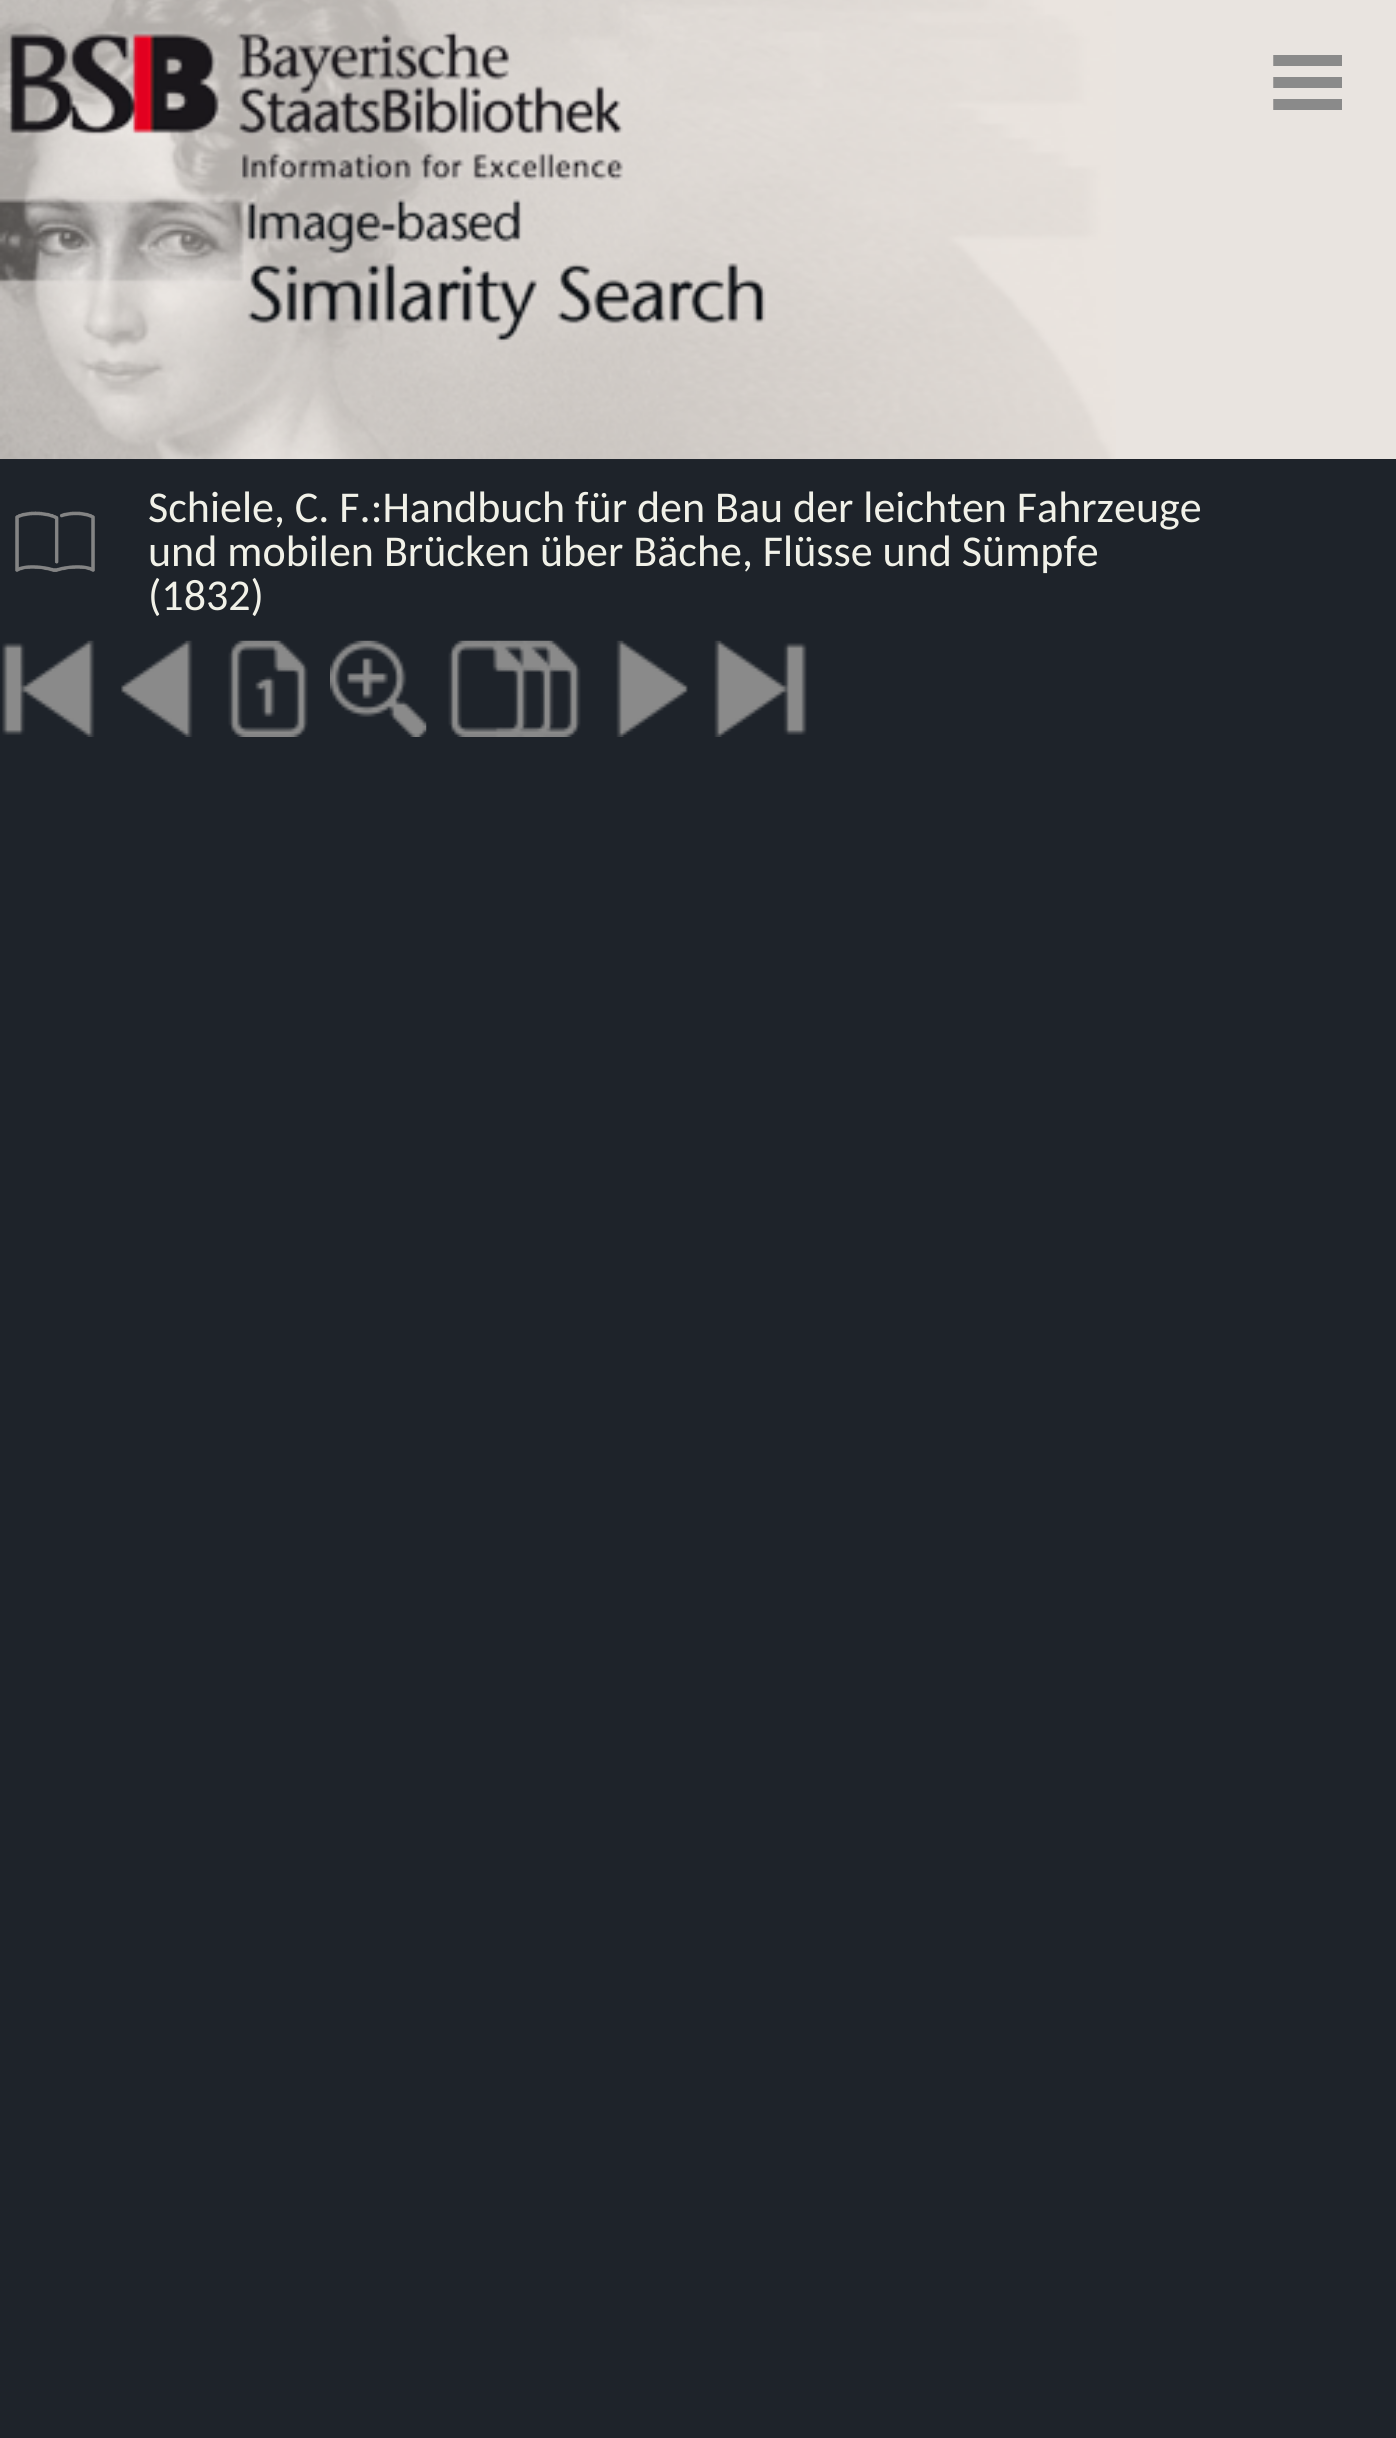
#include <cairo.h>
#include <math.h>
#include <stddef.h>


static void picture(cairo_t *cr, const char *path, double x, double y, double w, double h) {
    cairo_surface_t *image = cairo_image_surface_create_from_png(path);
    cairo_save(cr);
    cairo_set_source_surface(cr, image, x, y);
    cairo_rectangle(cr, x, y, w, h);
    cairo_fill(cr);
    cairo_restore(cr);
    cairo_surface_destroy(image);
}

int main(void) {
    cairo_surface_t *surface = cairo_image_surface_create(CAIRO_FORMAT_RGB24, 1396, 2438);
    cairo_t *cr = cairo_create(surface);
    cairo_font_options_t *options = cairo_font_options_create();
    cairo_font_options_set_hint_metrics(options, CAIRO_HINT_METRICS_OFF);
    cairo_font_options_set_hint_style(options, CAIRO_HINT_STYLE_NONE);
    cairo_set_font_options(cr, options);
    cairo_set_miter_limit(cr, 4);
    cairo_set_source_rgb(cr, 0.118, 0.137, 0.165);
    cairo_paint(cr);
    cairo_set_source_rgb(cr, 0.914, 0.894, 0.878);
    cairo_rectangle(cr, 0, 0, 1396, 459);
    cairo_fill(cr);
    picture(cr, "img1.png", 0, 0, 1116, 460);
    picture(cr, "img2.png", 1273, 55, 69, 55);
    picture(cr, "img3.png", 15, 511, 80, 61);
    cairo_select_font_face(cr, "Carlito", CAIRO_FONT_SLANT_NORMAL, CAIRO_FONT_WEIGHT_NORMAL);
    cairo_set_font_size(cr, 44);
    cairo_set_source_rgb(cr, 0.945, 0.945, 0.91);
    cairo_move_to(cr, 148, 522);
    cairo_show_text(cr, "Schiele, C. F.:Handbuch für den Bau der leichten Fahrzeuge");
    cairo_move_to(cr, 148, 566);
    cairo_show_text(cr, "und mobilen Brücken über Bäche, Flüsse und Sümpfe");
    cairo_move_to(cr, 148, 610);
    cairo_show_text(cr, "(1832)");
    picture(cr, "img4.png", 2, 640, 93, 97);
    picture(cr, "img5.png", 121, 640, 72, 97);
    picture(cr, "img6.png", 228, 640, 80, 97);
    picture(cr, "img7.png", 330, 640, 97, 97);
    picture(cr, "img8.png", 448, 640, 133, 97);
    picture(cr, "img9.png", 616, 640, 72, 97);
    picture(cr, "img10.png", 714, 640, 93, 97);
    cairo_surface_write_to_png(surface, "page.png");
    cairo_font_options_destroy(options);
    cairo_destroy(cr);
    cairo_surface_destroy(surface);
    return 0;
}
